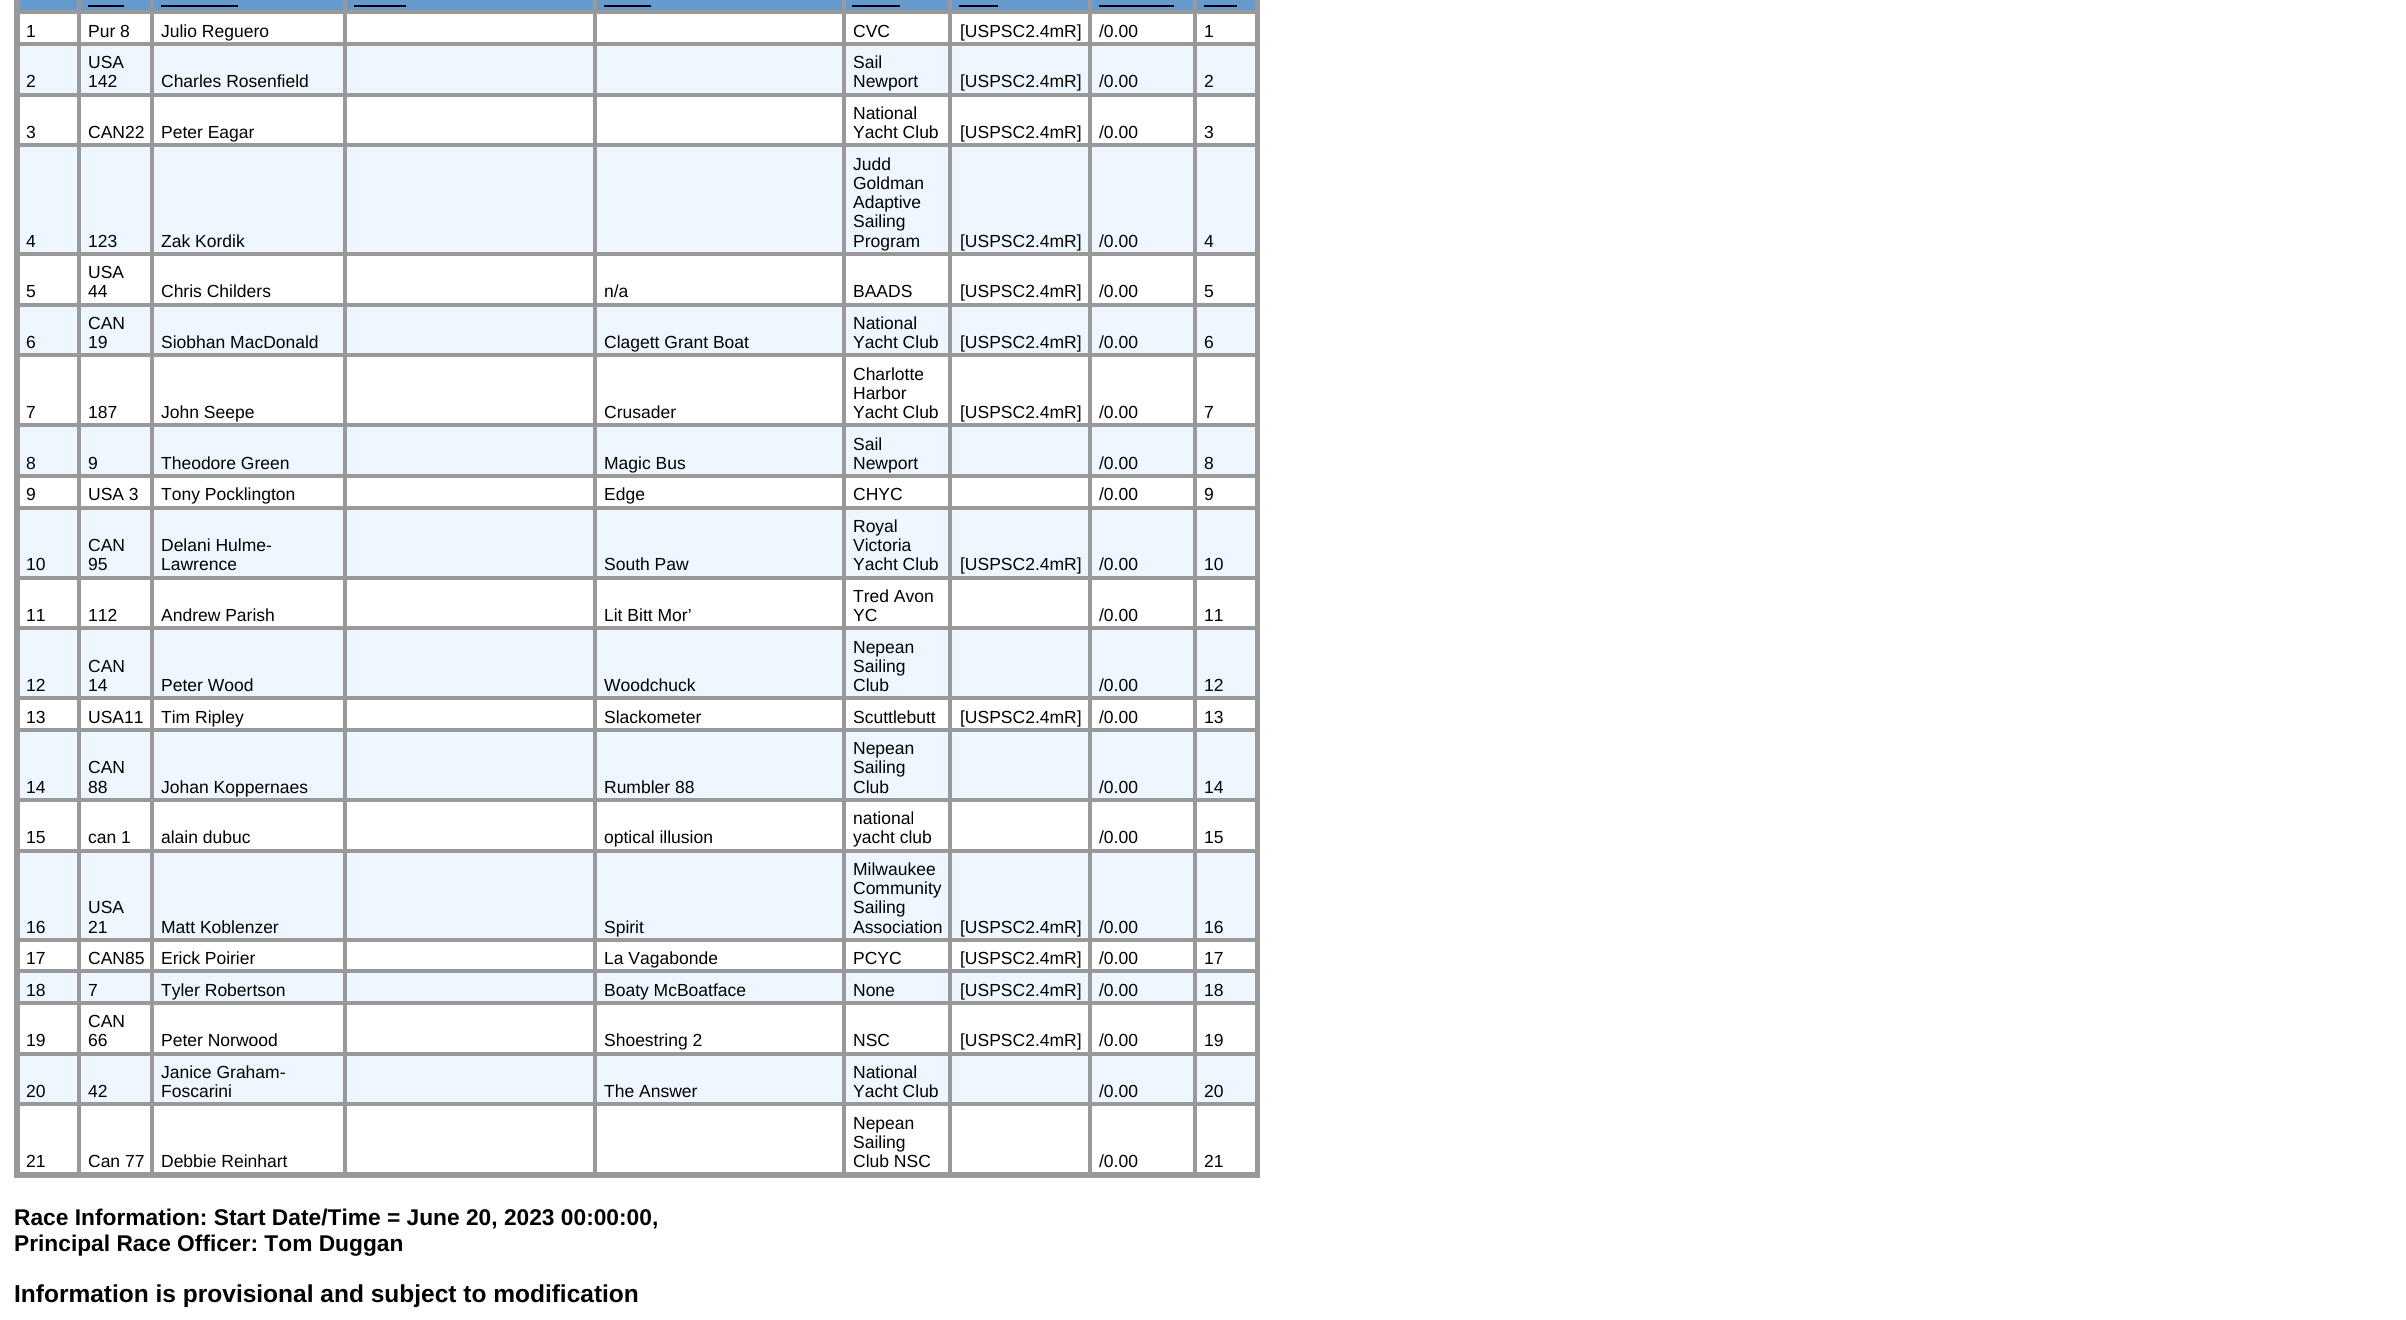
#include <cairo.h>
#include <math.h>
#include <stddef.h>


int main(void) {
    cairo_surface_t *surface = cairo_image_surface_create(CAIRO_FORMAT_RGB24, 2406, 1320);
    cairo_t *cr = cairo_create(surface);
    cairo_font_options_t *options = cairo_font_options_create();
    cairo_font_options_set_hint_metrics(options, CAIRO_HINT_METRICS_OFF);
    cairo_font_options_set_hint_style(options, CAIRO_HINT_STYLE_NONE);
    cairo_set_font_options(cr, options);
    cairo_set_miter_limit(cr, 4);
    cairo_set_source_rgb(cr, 1, 1, 1);
    cairo_paint(cr);
    cairo_set_source_rgb(cr, 0.6, 0.6, 0.6);
    cairo_rectangle(cr, 14, 0, 1246, 1178);
    cairo_fill(cr);
    cairo_set_source_rgb(cr, 0.4, 0.6, 0.8);
    cairo_rectangle(cr, 20, 0, 57, 10);
    cairo_fill(cr);
    cairo_rectangle(cr, 81, 0, 69, 10);
    cairo_fill(cr);
    cairo_set_source_rgb(cr, 0, 0, 0);
    cairo_rectangle(cr, 88, 5, 36, 2);
    cairo_fill(cr);
    cairo_set_source_rgb(cr, 0.4, 0.6, 0.8);
    cairo_rectangle(cr, 154, 0, 189, 10);
    cairo_fill(cr);
    cairo_set_source_rgb(cr, 0, 0, 0);
    cairo_rectangle(cr, 161, 5, 77, 2);
    cairo_fill(cr);
    cairo_set_source_rgb(cr, 0.4, 0.6, 0.8);
    cairo_rectangle(cr, 347, 0, 246, 10);
    cairo_fill(cr);
    cairo_set_source_rgb(cr, 0, 0, 0);
    cairo_rectangle(cr, 354, 5, 52, 2);
    cairo_fill(cr);
    cairo_set_source_rgb(cr, 0.4, 0.6, 0.8);
    cairo_rectangle(cr, 597, 0, 245, 10);
    cairo_fill(cr);
    cairo_set_source_rgb(cr, 0, 0, 0);
    cairo_rectangle(cr, 604, 5, 47, 2);
    cairo_fill(cr);
    cairo_set_source_rgb(cr, 0.4, 0.6, 0.8);
    cairo_rectangle(cr, 846, 0, 102, 10);
    cairo_fill(cr);
    cairo_set_source_rgb(cr, 0, 0, 0);
    cairo_rectangle(cr, 852, 5, 48, 2);
    cairo_fill(cr);
    cairo_set_source_rgb(cr, 0.4, 0.6, 0.8);
    cairo_rectangle(cr, 952, 0, 136, 10);
    cairo_fill(cr);
    cairo_set_source_rgb(cr, 0, 0, 0);
    cairo_rectangle(cr, 959, 5, 39, 2);
    cairo_fill(cr);
    cairo_set_source_rgb(cr, 0.4, 0.6, 0.8);
    cairo_rectangle(cr, 1092, 0, 101, 10);
    cairo_fill(cr);
    cairo_set_source_rgb(cr, 0, 0, 0);
    cairo_rectangle(cr, 1099, 5, 75, 2);
    cairo_fill(cr);
    cairo_set_source_rgb(cr, 0.4, 0.6, 0.8);
    cairo_rectangle(cr, 1197, 0, 58, 10);
    cairo_fill(cr);
    cairo_set_source_rgb(cr, 0, 0, 0);
    cairo_rectangle(cr, 1204, 5, 33, 2);
    cairo_fill(cr);
    cairo_set_source_rgb(cr, 1, 1, 1);
    cairo_rectangle(cr, 20, 14, 57, 28);
    cairo_fill(cr);
    cairo_select_font_face(cr, "Liberation Sans", CAIRO_FONT_SLANT_NORMAL, CAIRO_FONT_WEIGHT_NORMAL);
    cairo_set_font_size(cr, 17.5);
    cairo_set_source_rgb(cr, 0, 0, 0);
    cairo_move_to(cr, 26, 37);
    cairo_show_text(cr, "1");
    cairo_set_source_rgb(cr, 1, 1, 1);
    cairo_rectangle(cr, 81, 14, 69, 28);
    cairo_fill(cr);
    cairo_set_source_rgb(cr, 0, 0, 0);
    cairo_move_to(cr, 88, 37);
    cairo_show_text(cr, "Pur 8");
    cairo_set_source_rgb(cr, 1, 1, 1);
    cairo_rectangle(cr, 154, 14, 189, 28);
    cairo_fill(cr);
    cairo_set_source_rgb(cr, 0, 0, 0);
    cairo_move_to(cr, 161, 37);
    cairo_show_text(cr, "Julio Reguero");
    cairo_set_source_rgb(cr, 1, 1, 1);
    cairo_rectangle(cr, 347, 14, 246, 28);
    cairo_fill(cr);
    cairo_rectangle(cr, 597, 14, 245, 28);
    cairo_fill(cr);
    cairo_rectangle(cr, 846, 14, 102, 28);
    cairo_fill(cr);
    cairo_set_source_rgb(cr, 0, 0, 0);
    cairo_move_to(cr, 853, 37);
    cairo_show_text(cr, "CVC");
    cairo_set_source_rgb(cr, 1, 1, 1);
    cairo_rectangle(cr, 952, 14, 136, 28);
    cairo_fill(cr);
    cairo_set_source_rgb(cr, 0, 0, 0);
    cairo_move_to(cr, 960, 37);
    cairo_show_text(cr, "[USPSC2.4mR]");
    cairo_set_source_rgb(cr, 1, 1, 1);
    cairo_rectangle(cr, 1092, 14, 101, 28);
    cairo_fill(cr);
    cairo_set_source_rgb(cr, 0, 0, 0);
    cairo_move_to(cr, 1099, 37);
    cairo_show_text(cr, "/0.00");
    cairo_set_source_rgb(cr, 1, 1, 1);
    cairo_rectangle(cr, 1197, 14, 58, 28);
    cairo_fill(cr);
    cairo_set_source_rgb(cr, 0, 0, 0);
    cairo_move_to(cr, 1204, 37);
    cairo_show_text(cr, "1");
    cairo_set_source_rgb(cr, 0.933, 0.965, 1);
    cairo_rectangle(cr, 20, 46, 57, 47);
    cairo_fill(cr);
    cairo_set_source_rgb(cr, 0, 0, 0);
    cairo_move_to(cr, 26, 87);
    cairo_show_text(cr, "2");
    cairo_set_source_rgb(cr, 0.933, 0.965, 1);
    cairo_rectangle(cr, 81, 46, 69, 47);
    cairo_fill(cr);
    cairo_set_source_rgb(cr, 0, 0, 0);
    cairo_move_to(cr, 88, 68);
    cairo_show_text(cr, "USA");
    cairo_move_to(cr, 88, 87);
    cairo_show_text(cr, "142");
    cairo_set_source_rgb(cr, 0.933, 0.965, 1);
    cairo_rectangle(cr, 154, 46, 189, 47);
    cairo_fill(cr);
    cairo_set_source_rgb(cr, 0, 0, 0);
    cairo_move_to(cr, 161, 87);
    cairo_show_text(cr, "Charles Rosenfield");
    cairo_set_source_rgb(cr, 0.933, 0.965, 1);
    cairo_rectangle(cr, 347, 46, 246, 47);
    cairo_fill(cr);
    cairo_rectangle(cr, 597, 46, 245, 47);
    cairo_fill(cr);
    cairo_rectangle(cr, 846, 46, 102, 47);
    cairo_fill(cr);
    cairo_set_source_rgb(cr, 0, 0, 0);
    cairo_move_to(cr, 853, 68);
    cairo_show_text(cr, "Sail");
    cairo_move_to(cr, 853, 87);
    cairo_show_text(cr, "Newport");
    cairo_set_source_rgb(cr, 0.933, 0.965, 1);
    cairo_rectangle(cr, 952, 46, 136, 47);
    cairo_fill(cr);
    cairo_set_source_rgb(cr, 0, 0, 0);
    cairo_move_to(cr, 960, 87);
    cairo_show_text(cr, "[USPSC2.4mR]");
    cairo_set_source_rgb(cr, 0.933, 0.965, 1);
    cairo_rectangle(cr, 1092, 46, 101, 47);
    cairo_fill(cr);
    cairo_set_source_rgb(cr, 0, 0, 0);
    cairo_move_to(cr, 1099, 87);
    cairo_show_text(cr, "/0.00");
    cairo_set_source_rgb(cr, 0.933, 0.965, 1);
    cairo_rectangle(cr, 1197, 46, 58, 47);
    cairo_fill(cr);
    cairo_set_source_rgb(cr, 0, 0, 0);
    cairo_move_to(cr, 1204, 87);
    cairo_show_text(cr, "2");
    cairo_set_source_rgb(cr, 1, 1, 1);
    cairo_rectangle(cr, 20, 97, 57, 46);
    cairo_fill(cr);
    cairo_set_source_rgb(cr, 0, 0, 0);
    cairo_move_to(cr, 26, 138);
    cairo_show_text(cr, "3");
    cairo_set_source_rgb(cr, 1, 1, 1);
    cairo_rectangle(cr, 81, 97, 69, 46);
    cairo_fill(cr);
    cairo_set_source_rgb(cr, 0, 0, 0);
    cairo_move_to(cr, 88, 138);
    cairo_show_text(cr, "CAN22");
    cairo_set_source_rgb(cr, 1, 1, 1);
    cairo_rectangle(cr, 154, 97, 189, 46);
    cairo_fill(cr);
    cairo_set_source_rgb(cr, 0, 0, 0);
    cairo_move_to(cr, 161, 138);
    cairo_show_text(cr, "Peter Eagar");
    cairo_set_source_rgb(cr, 1, 1, 1);
    cairo_rectangle(cr, 347, 97, 246, 46);
    cairo_fill(cr);
    cairo_rectangle(cr, 597, 97, 245, 46);
    cairo_fill(cr);
    cairo_rectangle(cr, 846, 97, 102, 46);
    cairo_fill(cr);
    cairo_set_source_rgb(cr, 0, 0, 0);
    cairo_move_to(cr, 853, 119);
    cairo_show_text(cr, "National");
    cairo_move_to(cr, 853, 138);
    cairo_show_text(cr, "Yacht Club");
    cairo_set_source_rgb(cr, 1, 1, 1);
    cairo_rectangle(cr, 952, 97, 136, 46);
    cairo_fill(cr);
    cairo_set_source_rgb(cr, 0, 0, 0);
    cairo_move_to(cr, 960, 138);
    cairo_show_text(cr, "[USPSC2.4mR]");
    cairo_set_source_rgb(cr, 1, 1, 1);
    cairo_rectangle(cr, 1092, 97, 101, 46);
    cairo_fill(cr);
    cairo_set_source_rgb(cr, 0, 0, 0);
    cairo_move_to(cr, 1099, 138);
    cairo_show_text(cr, "/0.00");
    cairo_set_source_rgb(cr, 1, 1, 1);
    cairo_rectangle(cr, 1197, 97, 58, 46);
    cairo_fill(cr);
    cairo_set_source_rgb(cr, 0, 0, 0);
    cairo_move_to(cr, 1204, 138);
    cairo_show_text(cr, "3");
    cairo_set_source_rgb(cr, 0.933, 0.965, 1);
    cairo_rectangle(cr, 20, 147, 57, 105);
    cairo_fill(cr);
    cairo_set_source_rgb(cr, 0, 0, 0);
    cairo_move_to(cr, 26, 247);
    cairo_show_text(cr, "4");
    cairo_set_source_rgb(cr, 0.933, 0.965, 1);
    cairo_rectangle(cr, 81, 147, 69, 105);
    cairo_fill(cr);
    cairo_set_source_rgb(cr, 0, 0, 0);
    cairo_move_to(cr, 88, 247);
    cairo_show_text(cr, "123");
    cairo_set_source_rgb(cr, 0.933, 0.965, 1);
    cairo_rectangle(cr, 154, 147, 189, 105);
    cairo_fill(cr);
    cairo_set_source_rgb(cr, 0, 0, 0);
    cairo_move_to(cr, 161, 247);
    cairo_show_text(cr, "Zak Kordik");
    cairo_set_source_rgb(cr, 0.933, 0.965, 1);
    cairo_rectangle(cr, 347, 147, 246, 105);
    cairo_fill(cr);
    cairo_rectangle(cr, 597, 147, 245, 105);
    cairo_fill(cr);
    cairo_rectangle(cr, 846, 147, 102, 105);
    cairo_fill(cr);
    cairo_set_source_rgb(cr, 0, 0, 0);
    cairo_move_to(cr, 853, 170);
    cairo_show_text(cr, "Judd");
    cairo_move_to(cr, 853, 189);
    cairo_show_text(cr, "Goldman");
    cairo_move_to(cr, 853, 208);
    cairo_show_text(cr, "Adaptive");
    cairo_move_to(cr, 853, 227);
    cairo_show_text(cr, "Sailing");
    cairo_move_to(cr, 853, 247);
    cairo_show_text(cr, "Program");
    cairo_set_source_rgb(cr, 0.933, 0.965, 1);
    cairo_rectangle(cr, 952, 147, 136, 105);
    cairo_fill(cr);
    cairo_set_source_rgb(cr, 0, 0, 0);
    cairo_move_to(cr, 960, 247);
    cairo_show_text(cr, "[USPSC2.4mR]");
    cairo_set_source_rgb(cr, 0.933, 0.965, 1);
    cairo_rectangle(cr, 1092, 147, 101, 105);
    cairo_fill(cr);
    cairo_set_source_rgb(cr, 0, 0, 0);
    cairo_move_to(cr, 1099, 247);
    cairo_show_text(cr, "/0.00");
    cairo_set_source_rgb(cr, 0.933, 0.965, 1);
    cairo_rectangle(cr, 1197, 147, 58, 105);
    cairo_fill(cr);
    cairo_set_source_rgb(cr, 0, 0, 0);
    cairo_move_to(cr, 1204, 247);
    cairo_show_text(cr, "4");
    cairo_set_source_rgb(cr, 1, 1, 1);
    cairo_rectangle(cr, 20, 256, 57, 47);
    cairo_fill(cr);
    cairo_set_source_rgb(cr, 0, 0, 0);
    cairo_move_to(cr, 26, 297);
    cairo_show_text(cr, "5");
    cairo_set_source_rgb(cr, 1, 1, 1);
    cairo_rectangle(cr, 81, 256, 69, 47);
    cairo_fill(cr);
    cairo_set_source_rgb(cr, 0, 0, 0);
    cairo_move_to(cr, 88, 278);
    cairo_show_text(cr, "USA");
    cairo_move_to(cr, 88, 297);
    cairo_show_text(cr, "44");
    cairo_set_source_rgb(cr, 1, 1, 1);
    cairo_rectangle(cr, 154, 256, 189, 47);
    cairo_fill(cr);
    cairo_set_source_rgb(cr, 0, 0, 0);
    cairo_move_to(cr, 161, 297);
    cairo_show_text(cr, "Chris Childers");
    cairo_set_source_rgb(cr, 1, 1, 1);
    cairo_rectangle(cr, 347, 256, 246, 47);
    cairo_fill(cr);
    cairo_rectangle(cr, 597, 256, 245, 47);
    cairo_fill(cr);
    cairo_set_source_rgb(cr, 0, 0, 0);
    cairo_move_to(cr, 604, 297);
    cairo_show_text(cr, "n/a");
    cairo_set_source_rgb(cr, 1, 1, 1);
    cairo_rectangle(cr, 846, 256, 102, 47);
    cairo_fill(cr);
    cairo_set_source_rgb(cr, 0, 0, 0);
    cairo_move_to(cr, 853, 297);
    cairo_show_text(cr, "BAADS");
    cairo_set_source_rgb(cr, 1, 1, 1);
    cairo_rectangle(cr, 952, 256, 136, 47);
    cairo_fill(cr);
    cairo_set_source_rgb(cr, 0, 0, 0);
    cairo_move_to(cr, 960, 297);
    cairo_show_text(cr, "[USPSC2.4mR]");
    cairo_set_source_rgb(cr, 1, 1, 1);
    cairo_rectangle(cr, 1092, 256, 101, 47);
    cairo_fill(cr);
    cairo_set_source_rgb(cr, 0, 0, 0);
    cairo_move_to(cr, 1099, 297);
    cairo_show_text(cr, "/0.00");
    cairo_set_source_rgb(cr, 1, 1, 1);
    cairo_rectangle(cr, 1197, 256, 58, 47);
    cairo_fill(cr);
    cairo_set_source_rgb(cr, 0, 0, 0);
    cairo_move_to(cr, 1204, 297);
    cairo_show_text(cr, "5");
    cairo_set_source_rgb(cr, 0.933, 0.965, 1);
    cairo_rectangle(cr, 20, 307, 57, 46);
    cairo_fill(cr);
    cairo_set_source_rgb(cr, 0, 0, 0);
    cairo_move_to(cr, 26, 348);
    cairo_show_text(cr, "6");
    cairo_set_source_rgb(cr, 0.933, 0.965, 1);
    cairo_rectangle(cr, 81, 307, 69, 46);
    cairo_fill(cr);
    cairo_set_source_rgb(cr, 0, 0, 0);
    cairo_move_to(cr, 88, 329);
    cairo_show_text(cr, "CAN");
    cairo_move_to(cr, 88, 348);
    cairo_show_text(cr, "19");
    cairo_set_source_rgb(cr, 0.933, 0.965, 1);
    cairo_rectangle(cr, 154, 307, 189, 46);
    cairo_fill(cr);
    cairo_set_source_rgb(cr, 0, 0, 0);
    cairo_move_to(cr, 161, 348);
    cairo_show_text(cr, "Siobhan MacDonald");
    cairo_set_source_rgb(cr, 0.933, 0.965, 1);
    cairo_rectangle(cr, 347, 307, 246, 46);
    cairo_fill(cr);
    cairo_rectangle(cr, 597, 307, 245, 46);
    cairo_fill(cr);
    cairo_set_source_rgb(cr, 0, 0, 0);
    cairo_move_to(cr, 604, 348);
    cairo_show_text(cr, "Clagett Grant Boat");
    cairo_set_source_rgb(cr, 0.933, 0.965, 1);
    cairo_rectangle(cr, 846, 307, 102, 46);
    cairo_fill(cr);
    cairo_set_source_rgb(cr, 0, 0, 0);
    cairo_move_to(cr, 853, 329);
    cairo_show_text(cr, "National");
    cairo_move_to(cr, 853, 348);
    cairo_show_text(cr, "Yacht Club");
    cairo_set_source_rgb(cr, 0.933, 0.965, 1);
    cairo_rectangle(cr, 952, 307, 136, 46);
    cairo_fill(cr);
    cairo_set_source_rgb(cr, 0, 0, 0);
    cairo_move_to(cr, 960, 348);
    cairo_show_text(cr, "[USPSC2.4mR]");
    cairo_set_source_rgb(cr, 0.933, 0.965, 1);
    cairo_rectangle(cr, 1092, 307, 101, 46);
    cairo_fill(cr);
    cairo_set_source_rgb(cr, 0, 0, 0);
    cairo_move_to(cr, 1099, 348);
    cairo_show_text(cr, "/0.00");
    cairo_set_source_rgb(cr, 0.933, 0.965, 1);
    cairo_rectangle(cr, 1197, 307, 58, 46);
    cairo_fill(cr);
    cairo_set_source_rgb(cr, 0, 0, 0);
    cairo_move_to(cr, 1204, 348);
    cairo_show_text(cr, "6");
    cairo_set_source_rgb(cr, 1, 1, 1);
    cairo_rectangle(cr, 20, 357, 57, 66);
    cairo_fill(cr);
    cairo_set_source_rgb(cr, 0, 0, 0);
    cairo_move_to(cr, 26, 418);
    cairo_show_text(cr, "7");
    cairo_set_source_rgb(cr, 1, 1, 1);
    cairo_rectangle(cr, 81, 357, 69, 66);
    cairo_fill(cr);
    cairo_set_source_rgb(cr, 0, 0, 0);
    cairo_move_to(cr, 88, 418);
    cairo_show_text(cr, "187");
    cairo_set_source_rgb(cr, 1, 1, 1);
    cairo_rectangle(cr, 154, 357, 189, 66);
    cairo_fill(cr);
    cairo_set_source_rgb(cr, 0, 0, 0);
    cairo_move_to(cr, 161, 418);
    cairo_show_text(cr, "John Seepe");
    cairo_set_source_rgb(cr, 1, 1, 1);
    cairo_rectangle(cr, 347, 357, 246, 66);
    cairo_fill(cr);
    cairo_rectangle(cr, 597, 357, 245, 66);
    cairo_fill(cr);
    cairo_set_source_rgb(cr, 0, 0, 0);
    cairo_move_to(cr, 604, 418);
    cairo_show_text(cr, "Crusader");
    cairo_set_source_rgb(cr, 1, 1, 1);
    cairo_rectangle(cr, 846, 357, 102, 66);
    cairo_fill(cr);
    cairo_set_source_rgb(cr, 0, 0, 0);
    cairo_move_to(cr, 853, 380);
    cairo_show_text(cr, "Charlotte");
    cairo_move_to(cr, 853, 399);
    cairo_show_text(cr, "Harbor");
    cairo_move_to(cr, 853, 418);
    cairo_show_text(cr, "Yacht Club");
    cairo_set_source_rgb(cr, 1, 1, 1);
    cairo_rectangle(cr, 952, 357, 136, 66);
    cairo_fill(cr);
    cairo_set_source_rgb(cr, 0, 0, 0);
    cairo_move_to(cr, 960, 418);
    cairo_show_text(cr, "[USPSC2.4mR]");
    cairo_set_source_rgb(cr, 1, 1, 1);
    cairo_rectangle(cr, 1092, 357, 101, 66);
    cairo_fill(cr);
    cairo_set_source_rgb(cr, 0, 0, 0);
    cairo_move_to(cr, 1099, 418);
    cairo_show_text(cr, "/0.00");
    cairo_set_source_rgb(cr, 1, 1, 1);
    cairo_rectangle(cr, 1197, 357, 58, 66);
    cairo_fill(cr);
    cairo_set_source_rgb(cr, 0, 0, 0);
    cairo_move_to(cr, 1204, 418);
    cairo_show_text(cr, "7");
    cairo_set_source_rgb(cr, 0.933, 0.965, 1);
    cairo_rectangle(cr, 20, 427, 57, 47);
    cairo_fill(cr);
    cairo_set_source_rgb(cr, 0, 0, 0);
    cairo_move_to(cr, 26, 469);
    cairo_show_text(cr, "8");
    cairo_set_source_rgb(cr, 0.933, 0.965, 1);
    cairo_rectangle(cr, 81, 427, 69, 47);
    cairo_fill(cr);
    cairo_set_source_rgb(cr, 0, 0, 0);
    cairo_move_to(cr, 88, 469);
    cairo_show_text(cr, "9");
    cairo_set_source_rgb(cr, 0.933, 0.965, 1);
    cairo_rectangle(cr, 154, 427, 189, 47);
    cairo_fill(cr);
    cairo_set_source_rgb(cr, 0, 0, 0);
    cairo_move_to(cr, 161, 469);
    cairo_show_text(cr, "Theodore Green");
    cairo_set_source_rgb(cr, 0.933, 0.965, 1);
    cairo_rectangle(cr, 347, 427, 246, 47);
    cairo_fill(cr);
    cairo_rectangle(cr, 597, 427, 245, 47);
    cairo_fill(cr);
    cairo_set_source_rgb(cr, 0, 0, 0);
    cairo_move_to(cr, 604, 469);
    cairo_show_text(cr, "Magic Bus");
    cairo_set_source_rgb(cr, 0.933, 0.965, 1);
    cairo_rectangle(cr, 846, 427, 102, 47);
    cairo_fill(cr);
    cairo_set_source_rgb(cr, 0, 0, 0);
    cairo_move_to(cr, 853, 450);
    cairo_show_text(cr, "Sail");
    cairo_move_to(cr, 853, 469);
    cairo_show_text(cr, "Newport");
    cairo_set_source_rgb(cr, 0.933, 0.965, 1);
    cairo_rectangle(cr, 952, 427, 136, 47);
    cairo_fill(cr);
    cairo_rectangle(cr, 1092, 427, 101, 47);
    cairo_fill(cr);
    cairo_set_source_rgb(cr, 0, 0, 0);
    cairo_move_to(cr, 1099, 469);
    cairo_show_text(cr, "/0.00");
    cairo_set_source_rgb(cr, 0.933, 0.965, 1);
    cairo_rectangle(cr, 1197, 427, 58, 47);
    cairo_fill(cr);
    cairo_set_source_rgb(cr, 0, 0, 0);
    cairo_move_to(cr, 1204, 469);
    cairo_show_text(cr, "8");
    cairo_set_source_rgb(cr, 1, 1, 1);
    cairo_rectangle(cr, 20, 478, 57, 28);
    cairo_fill(cr);
    cairo_set_source_rgb(cr, 0, 0, 0);
    cairo_move_to(cr, 26, 500);
    cairo_show_text(cr, "9");
    cairo_set_source_rgb(cr, 1, 1, 1);
    cairo_rectangle(cr, 81, 478, 69, 28);
    cairo_fill(cr);
    cairo_set_source_rgb(cr, 0, 0, 0);
    cairo_move_to(cr, 88, 500);
    cairo_show_text(cr, "USA 3");
    cairo_set_source_rgb(cr, 1, 1, 1);
    cairo_rectangle(cr, 154, 478, 189, 28);
    cairo_fill(cr);
    cairo_set_source_rgb(cr, 0, 0, 0);
    cairo_move_to(cr, 161, 500);
    cairo_show_text(cr, "Tony Pocklington");
    cairo_set_source_rgb(cr, 1, 1, 1);
    cairo_rectangle(cr, 347, 478, 246, 28);
    cairo_fill(cr);
    cairo_rectangle(cr, 597, 478, 245, 28);
    cairo_fill(cr);
    cairo_set_source_rgb(cr, 0, 0, 0);
    cairo_move_to(cr, 604, 500);
    cairo_show_text(cr, "Edge");
    cairo_set_source_rgb(cr, 1, 1, 1);
    cairo_rectangle(cr, 846, 478, 102, 28);
    cairo_fill(cr);
    cairo_set_source_rgb(cr, 0, 0, 0);
    cairo_move_to(cr, 853, 500);
    cairo_show_text(cr, "CHYC");
    cairo_set_source_rgb(cr, 1, 1, 1);
    cairo_rectangle(cr, 952, 478, 136, 28);
    cairo_fill(cr);
    cairo_rectangle(cr, 1092, 478, 101, 28);
    cairo_fill(cr);
    cairo_set_source_rgb(cr, 0, 0, 0);
    cairo_move_to(cr, 1099, 500);
    cairo_show_text(cr, "/0.00");
    cairo_set_source_rgb(cr, 1, 1, 1);
    cairo_rectangle(cr, 1197, 478, 58, 28);
    cairo_fill(cr);
    cairo_set_source_rgb(cr, 0, 0, 0);
    cairo_move_to(cr, 1204, 500);
    cairo_show_text(cr, "9");
    cairo_set_source_rgb(cr, 0.933, 0.965, 1);
    cairo_rectangle(cr, 20, 510, 57, 66);
    cairo_fill(cr);
    cairo_set_source_rgb(cr, 0, 0, 0);
    cairo_move_to(cr, 26, 570);
    cairo_show_text(cr, "10");
    cairo_set_source_rgb(cr, 0.933, 0.965, 1);
    cairo_rectangle(cr, 81, 510, 69, 66);
    cairo_fill(cr);
    cairo_set_source_rgb(cr, 0, 0, 0);
    cairo_move_to(cr, 88, 551);
    cairo_show_text(cr, "CAN");
    cairo_move_to(cr, 88, 570);
    cairo_show_text(cr, "95");
    cairo_set_source_rgb(cr, 0.933, 0.965, 1);
    cairo_rectangle(cr, 154, 510, 189, 66);
    cairo_fill(cr);
    cairo_set_source_rgb(cr, 0, 0, 0);
    cairo_move_to(cr, 161, 551);
    cairo_show_text(cr, "Delani Hulme-");
    cairo_move_to(cr, 161, 570);
    cairo_show_text(cr, "Lawrence");
    cairo_set_source_rgb(cr, 0.933, 0.965, 1);
    cairo_rectangle(cr, 347, 510, 246, 66);
    cairo_fill(cr);
    cairo_rectangle(cr, 597, 510, 245, 66);
    cairo_fill(cr);
    cairo_set_source_rgb(cr, 0, 0, 0);
    cairo_move_to(cr, 604, 570);
    cairo_show_text(cr, "South Paw");
    cairo_set_source_rgb(cr, 0.933, 0.965, 1);
    cairo_rectangle(cr, 846, 510, 102, 66);
    cairo_fill(cr);
    cairo_set_source_rgb(cr, 0, 0, 0);
    cairo_move_to(cr, 853, 532);
    cairo_show_text(cr, "Royal");
    cairo_move_to(cr, 853, 551);
    cairo_show_text(cr, "Victoria");
    cairo_move_to(cr, 853, 570);
    cairo_show_text(cr, "Yacht Club");
    cairo_set_source_rgb(cr, 0.933, 0.965, 1);
    cairo_rectangle(cr, 952, 510, 136, 66);
    cairo_fill(cr);
    cairo_set_source_rgb(cr, 0, 0, 0);
    cairo_move_to(cr, 960, 570);
    cairo_show_text(cr, "[USPSC2.4mR]");
    cairo_set_source_rgb(cr, 0.933, 0.965, 1);
    cairo_rectangle(cr, 1092, 510, 101, 66);
    cairo_fill(cr);
    cairo_set_source_rgb(cr, 0, 0, 0);
    cairo_move_to(cr, 1099, 570);
    cairo_show_text(cr, "/0.00");
    cairo_set_source_rgb(cr, 0.933, 0.965, 1);
    cairo_rectangle(cr, 1197, 510, 58, 66);
    cairo_fill(cr);
    cairo_set_source_rgb(cr, 0, 0, 0);
    cairo_move_to(cr, 1204, 570);
    cairo_show_text(cr, "10");
    cairo_set_source_rgb(cr, 1, 1, 1);
    cairo_rectangle(cr, 20, 580, 57, 46);
    cairo_fill(cr);
    cairo_set_source_rgb(cr, 0, 0, 0);
    cairo_move_to(cr, 26, 621);
    cairo_show_text(cr, "11");
    cairo_set_source_rgb(cr, 1, 1, 1);
    cairo_rectangle(cr, 81, 580, 69, 46);
    cairo_fill(cr);
    cairo_set_source_rgb(cr, 0, 0, 0);
    cairo_move_to(cr, 88, 621);
    cairo_show_text(cr, "112");
    cairo_set_source_rgb(cr, 1, 1, 1);
    cairo_rectangle(cr, 154, 580, 189, 46);
    cairo_fill(cr);
    cairo_set_source_rgb(cr, 0, 0, 0);
    cairo_move_to(cr, 161, 621);
    cairo_show_text(cr, "Andrew Parish");
    cairo_set_source_rgb(cr, 1, 1, 1);
    cairo_rectangle(cr, 347, 580, 246, 46);
    cairo_fill(cr);
    cairo_rectangle(cr, 597, 580, 245, 46);
    cairo_fill(cr);
    cairo_set_source_rgb(cr, 0, 0, 0);
    cairo_move_to(cr, 604, 621);
    cairo_show_text(cr, "Lit Bitt Mor’");
    cairo_set_source_rgb(cr, 1, 1, 1);
    cairo_rectangle(cr, 846, 580, 102, 46);
    cairo_fill(cr);
    cairo_set_source_rgb(cr, 0, 0, 0);
    cairo_move_to(cr, 853, 602);
    cairo_show_text(cr, "Tred Avon");
    cairo_move_to(cr, 853, 621);
    cairo_show_text(cr, "YC");
    cairo_set_source_rgb(cr, 1, 1, 1);
    cairo_rectangle(cr, 952, 580, 136, 46);
    cairo_fill(cr);
    cairo_rectangle(cr, 1092, 580, 101, 46);
    cairo_fill(cr);
    cairo_set_source_rgb(cr, 0, 0, 0);
    cairo_move_to(cr, 1099, 621);
    cairo_show_text(cr, "/0.00");
    cairo_set_source_rgb(cr, 1, 1, 1);
    cairo_rectangle(cr, 1197, 580, 58, 46);
    cairo_fill(cr);
    cairo_set_source_rgb(cr, 0, 0, 0);
    cairo_move_to(cr, 1204, 621);
    cairo_show_text(cr, "11");
    cairo_set_source_rgb(cr, 0.933, 0.965, 1);
    cairo_rectangle(cr, 20, 630, 57, 66);
    cairo_fill(cr);
    cairo_set_source_rgb(cr, 0, 0, 0);
    cairo_move_to(cr, 26, 691);
    cairo_show_text(cr, "12");
    cairo_set_source_rgb(cr, 0.933, 0.965, 1);
    cairo_rectangle(cr, 81, 630, 69, 66);
    cairo_fill(cr);
    cairo_set_source_rgb(cr, 0, 0, 0);
    cairo_move_to(cr, 88, 672);
    cairo_show_text(cr, "CAN");
    cairo_move_to(cr, 88, 691);
    cairo_show_text(cr, "14");
    cairo_set_source_rgb(cr, 0.933, 0.965, 1);
    cairo_rectangle(cr, 154, 630, 189, 66);
    cairo_fill(cr);
    cairo_set_source_rgb(cr, 0, 0, 0);
    cairo_move_to(cr, 161, 691);
    cairo_show_text(cr, "Peter Wood");
    cairo_set_source_rgb(cr, 0.933, 0.965, 1);
    cairo_rectangle(cr, 347, 630, 246, 66);
    cairo_fill(cr);
    cairo_rectangle(cr, 597, 630, 245, 66);
    cairo_fill(cr);
    cairo_set_source_rgb(cr, 0, 0, 0);
    cairo_move_to(cr, 604, 691);
    cairo_show_text(cr, "Woodchuck");
    cairo_set_source_rgb(cr, 0.933, 0.965, 1);
    cairo_rectangle(cr, 846, 630, 102, 66);
    cairo_fill(cr);
    cairo_set_source_rgb(cr, 0, 0, 0);
    cairo_move_to(cr, 853, 653);
    cairo_show_text(cr, "Nepean");
    cairo_move_to(cr, 853, 672);
    cairo_show_text(cr, "Sailing");
    cairo_move_to(cr, 853, 691);
    cairo_show_text(cr, "Club");
    cairo_set_source_rgb(cr, 0.933, 0.965, 1);
    cairo_rectangle(cr, 952, 630, 136, 66);
    cairo_fill(cr);
    cairo_rectangle(cr, 1092, 630, 101, 66);
    cairo_fill(cr);
    cairo_set_source_rgb(cr, 0, 0, 0);
    cairo_move_to(cr, 1099, 691);
    cairo_show_text(cr, "/0.00");
    cairo_set_source_rgb(cr, 0.933, 0.965, 1);
    cairo_rectangle(cr, 1197, 630, 58, 66);
    cairo_fill(cr);
    cairo_set_source_rgb(cr, 0, 0, 0);
    cairo_move_to(cr, 1204, 691);
    cairo_show_text(cr, "12");
    cairo_set_source_rgb(cr, 1, 1, 1);
    cairo_rectangle(cr, 20, 700, 57, 28);
    cairo_fill(cr);
    cairo_set_source_rgb(cr, 0, 0, 0);
    cairo_move_to(cr, 26, 723);
    cairo_show_text(cr, "13");
    cairo_set_source_rgb(cr, 1, 1, 1);
    cairo_rectangle(cr, 81, 700, 69, 28);
    cairo_fill(cr);
    cairo_set_source_rgb(cr, 0, 0, 0);
    cairo_move_to(cr, 88, 723);
    cairo_show_text(cr, "USA11");
    cairo_set_source_rgb(cr, 1, 1, 1);
    cairo_rectangle(cr, 154, 700, 189, 28);
    cairo_fill(cr);
    cairo_set_source_rgb(cr, 0, 0, 0);
    cairo_move_to(cr, 161, 723);
    cairo_show_text(cr, "Tim Ripley");
    cairo_set_source_rgb(cr, 1, 1, 1);
    cairo_rectangle(cr, 347, 700, 246, 28);
    cairo_fill(cr);
    cairo_rectangle(cr, 597, 700, 245, 28);
    cairo_fill(cr);
    cairo_set_source_rgb(cr, 0, 0, 0);
    cairo_move_to(cr, 604, 723);
    cairo_show_text(cr, "Slackometer");
    cairo_set_source_rgb(cr, 1, 1, 1);
    cairo_rectangle(cr, 846, 700, 102, 28);
    cairo_fill(cr);
    cairo_set_source_rgb(cr, 0, 0, 0);
    cairo_move_to(cr, 853, 723);
    cairo_show_text(cr, "Scuttlebutt");
    cairo_set_source_rgb(cr, 1, 1, 1);
    cairo_rectangle(cr, 952, 700, 136, 28);
    cairo_fill(cr);
    cairo_set_source_rgb(cr, 0, 0, 0);
    cairo_move_to(cr, 960, 723);
    cairo_show_text(cr, "[USPSC2.4mR]");
    cairo_set_source_rgb(cr, 1, 1, 1);
    cairo_rectangle(cr, 1092, 700, 101, 28);
    cairo_fill(cr);
    cairo_set_source_rgb(cr, 0, 0, 0);
    cairo_move_to(cr, 1099, 723);
    cairo_show_text(cr, "/0.00");
    cairo_set_source_rgb(cr, 1, 1, 1);
    cairo_rectangle(cr, 1197, 700, 58, 28);
    cairo_fill(cr);
    cairo_set_source_rgb(cr, 0, 0, 0);
    cairo_move_to(cr, 1204, 723);
    cairo_show_text(cr, "13");
    cairo_set_source_rgb(cr, 0.933, 0.965, 1);
    cairo_rectangle(cr, 20, 732, 57, 66);
    cairo_fill(cr);
    cairo_set_source_rgb(cr, 0, 0, 0);
    cairo_move_to(cr, 26, 793);
    cairo_show_text(cr, "14");
    cairo_set_source_rgb(cr, 0.933, 0.965, 1);
    cairo_rectangle(cr, 81, 732, 69, 66);
    cairo_fill(cr);
    cairo_set_source_rgb(cr, 0, 0, 0);
    cairo_move_to(cr, 88, 773);
    cairo_show_text(cr, "CAN");
    cairo_move_to(cr, 88, 793);
    cairo_show_text(cr, "88");
    cairo_set_source_rgb(cr, 0.933, 0.965, 1);
    cairo_rectangle(cr, 154, 732, 189, 66);
    cairo_fill(cr);
    cairo_set_source_rgb(cr, 0, 0, 0);
    cairo_move_to(cr, 161, 793);
    cairo_show_text(cr, "Johan Koppernaes");
    cairo_set_source_rgb(cr, 0.933, 0.965, 1);
    cairo_rectangle(cr, 347, 732, 246, 66);
    cairo_fill(cr);
    cairo_rectangle(cr, 597, 732, 245, 66);
    cairo_fill(cr);
    cairo_set_source_rgb(cr, 0, 0, 0);
    cairo_move_to(cr, 604, 793);
    cairo_show_text(cr, "Rumbler 88");
    cairo_set_source_rgb(cr, 0.933, 0.965, 1);
    cairo_rectangle(cr, 846, 732, 102, 66);
    cairo_fill(cr);
    cairo_set_source_rgb(cr, 0, 0, 0);
    cairo_move_to(cr, 853, 754);
    cairo_show_text(cr, "Nepean");
    cairo_move_to(cr, 853, 773);
    cairo_show_text(cr, "Sailing");
    cairo_move_to(cr, 853, 793);
    cairo_show_text(cr, "Club");
    cairo_set_source_rgb(cr, 0.933, 0.965, 1);
    cairo_rectangle(cr, 952, 732, 136, 66);
    cairo_fill(cr);
    cairo_rectangle(cr, 1092, 732, 101, 66);
    cairo_fill(cr);
    cairo_set_source_rgb(cr, 0, 0, 0);
    cairo_move_to(cr, 1099, 793);
    cairo_show_text(cr, "/0.00");
    cairo_set_source_rgb(cr, 0.933, 0.965, 1);
    cairo_rectangle(cr, 1197, 732, 58, 66);
    cairo_fill(cr);
    cairo_set_source_rgb(cr, 0, 0, 0);
    cairo_move_to(cr, 1204, 793);
    cairo_show_text(cr, "14");
    cairo_set_source_rgb(cr, 1, 1, 1);
    cairo_rectangle(cr, 20, 802, 57, 47);
    cairo_fill(cr);
    cairo_set_source_rgb(cr, 0, 0, 0);
    cairo_move_to(cr, 26, 843);
    cairo_show_text(cr, "15");
    cairo_set_source_rgb(cr, 1, 1, 1);
    cairo_rectangle(cr, 81, 802, 69, 47);
    cairo_fill(cr);
    cairo_set_source_rgb(cr, 0, 0, 0);
    cairo_move_to(cr, 88, 843);
    cairo_show_text(cr, "can 1");
    cairo_set_source_rgb(cr, 1, 1, 1);
    cairo_rectangle(cr, 154, 802, 189, 47);
    cairo_fill(cr);
    cairo_set_source_rgb(cr, 0, 0, 0);
    cairo_move_to(cr, 161, 843);
    cairo_show_text(cr, "alain dubuc");
    cairo_set_source_rgb(cr, 1, 1, 1);
    cairo_rectangle(cr, 347, 802, 246, 47);
    cairo_fill(cr);
    cairo_rectangle(cr, 597, 802, 245, 47);
    cairo_fill(cr);
    cairo_set_source_rgb(cr, 0, 0, 0);
    cairo_move_to(cr, 604, 843);
    cairo_show_text(cr, "optical illusion");
    cairo_set_source_rgb(cr, 1, 1, 1);
    cairo_rectangle(cr, 846, 802, 102, 47);
    cairo_fill(cr);
    cairo_set_source_rgb(cr, 0, 0, 0);
    cairo_move_to(cr, 853, 824);
    cairo_show_text(cr, "national");
    cairo_move_to(cr, 853, 843);
    cairo_show_text(cr, "yacht club");
    cairo_set_source_rgb(cr, 1, 1, 1);
    cairo_rectangle(cr, 952, 802, 136, 47);
    cairo_fill(cr);
    cairo_rectangle(cr, 1092, 802, 101, 47);
    cairo_fill(cr);
    cairo_set_source_rgb(cr, 0, 0, 0);
    cairo_move_to(cr, 1099, 843);
    cairo_show_text(cr, "/0.00");
    cairo_set_source_rgb(cr, 1, 1, 1);
    cairo_rectangle(cr, 1197, 802, 58, 47);
    cairo_fill(cr);
    cairo_set_source_rgb(cr, 0, 0, 0);
    cairo_move_to(cr, 1204, 843);
    cairo_show_text(cr, "15");
    cairo_set_source_rgb(cr, 0.933, 0.965, 1);
    cairo_rectangle(cr, 20, 853, 57, 85);
    cairo_fill(cr);
    cairo_set_source_rgb(cr, 0, 0, 0);
    cairo_move_to(cr, 26, 933);
    cairo_show_text(cr, "16");
    cairo_set_source_rgb(cr, 0.933, 0.965, 1);
    cairo_rectangle(cr, 81, 853, 69, 85);
    cairo_fill(cr);
    cairo_set_source_rgb(cr, 0, 0, 0);
    cairo_move_to(cr, 88, 913);
    cairo_show_text(cr, "USA");
    cairo_move_to(cr, 88, 933);
    cairo_show_text(cr, "21");
    cairo_set_source_rgb(cr, 0.933, 0.965, 1);
    cairo_rectangle(cr, 154, 853, 189, 85);
    cairo_fill(cr);
    cairo_set_source_rgb(cr, 0, 0, 0);
    cairo_move_to(cr, 161, 933);
    cairo_show_text(cr, "Matt Koblenzer");
    cairo_set_source_rgb(cr, 0.933, 0.965, 1);
    cairo_rectangle(cr, 347, 853, 246, 85);
    cairo_fill(cr);
    cairo_rectangle(cr, 597, 853, 245, 85);
    cairo_fill(cr);
    cairo_set_source_rgb(cr, 0, 0, 0);
    cairo_move_to(cr, 604, 933);
    cairo_show_text(cr, "Spirit");
    cairo_set_source_rgb(cr, 0.933, 0.965, 1);
    cairo_rectangle(cr, 846, 853, 102, 85);
    cairo_fill(cr);
    cairo_set_source_rgb(cr, 0, 0, 0);
    cairo_move_to(cr, 853, 875);
    cairo_show_text(cr, "Milwaukee");
    cairo_move_to(cr, 853, 894);
    cairo_show_text(cr, "Community");
    cairo_move_to(cr, 853, 913);
    cairo_show_text(cr, "Sailing");
    cairo_move_to(cr, 853, 933);
    cairo_show_text(cr, "Association");
    cairo_set_source_rgb(cr, 0.933, 0.965, 1);
    cairo_rectangle(cr, 952, 853, 136, 85);
    cairo_fill(cr);
    cairo_set_source_rgb(cr, 0, 0, 0);
    cairo_move_to(cr, 960, 933);
    cairo_show_text(cr, "[USPSC2.4mR]");
    cairo_set_source_rgb(cr, 0.933, 0.965, 1);
    cairo_rectangle(cr, 1092, 853, 101, 85);
    cairo_fill(cr);
    cairo_set_source_rgb(cr, 0, 0, 0);
    cairo_move_to(cr, 1099, 933);
    cairo_show_text(cr, "/0.00");
    cairo_set_source_rgb(cr, 0.933, 0.965, 1);
    cairo_rectangle(cr, 1197, 853, 58, 85);
    cairo_fill(cr);
    cairo_set_source_rgb(cr, 0, 0, 0);
    cairo_move_to(cr, 1204, 933);
    cairo_show_text(cr, "16");
    cairo_set_source_rgb(cr, 1, 1, 1);
    cairo_rectangle(cr, 20, 942, 57, 27);
    cairo_fill(cr);
    cairo_set_source_rgb(cr, 0, 0, 0);
    cairo_move_to(cr, 26, 964);
    cairo_show_text(cr, "17");
    cairo_set_source_rgb(cr, 1, 1, 1);
    cairo_rectangle(cr, 81, 942, 69, 27);
    cairo_fill(cr);
    cairo_set_source_rgb(cr, 0, 0, 0);
    cairo_move_to(cr, 88, 964);
    cairo_show_text(cr, "CAN85");
    cairo_set_source_rgb(cr, 1, 1, 1);
    cairo_rectangle(cr, 154, 942, 189, 27);
    cairo_fill(cr);
    cairo_set_source_rgb(cr, 0, 0, 0);
    cairo_move_to(cr, 161, 964);
    cairo_show_text(cr, "Erick Poirier");
    cairo_set_source_rgb(cr, 1, 1, 1);
    cairo_rectangle(cr, 347, 942, 246, 27);
    cairo_fill(cr);
    cairo_rectangle(cr, 597, 942, 245, 27);
    cairo_fill(cr);
    cairo_set_source_rgb(cr, 0, 0, 0);
    cairo_move_to(cr, 604, 964);
    cairo_show_text(cr, "La Vagabonde");
    cairo_set_source_rgb(cr, 1, 1, 1);
    cairo_rectangle(cr, 846, 942, 102, 27);
    cairo_fill(cr);
    cairo_set_source_rgb(cr, 0, 0, 0);
    cairo_move_to(cr, 853, 964);
    cairo_show_text(cr, "PCYC");
    cairo_set_source_rgb(cr, 1, 1, 1);
    cairo_rectangle(cr, 952, 942, 136, 27);
    cairo_fill(cr);
    cairo_set_source_rgb(cr, 0, 0, 0);
    cairo_move_to(cr, 960, 964);
    cairo_show_text(cr, "[USPSC2.4mR]");
    cairo_set_source_rgb(cr, 1, 1, 1);
    cairo_rectangle(cr, 1092, 942, 101, 27);
    cairo_fill(cr);
    cairo_set_source_rgb(cr, 0, 0, 0);
    cairo_move_to(cr, 1099, 964);
    cairo_show_text(cr, "/0.00");
    cairo_set_source_rgb(cr, 1, 1, 1);
    cairo_rectangle(cr, 1197, 942, 58, 27);
    cairo_fill(cr);
    cairo_set_source_rgb(cr, 0, 0, 0);
    cairo_move_to(cr, 1204, 964);
    cairo_show_text(cr, "17");
    cairo_set_source_rgb(cr, 0.933, 0.965, 1);
    cairo_rectangle(cr, 20, 973, 57, 28);
    cairo_fill(cr);
    cairo_set_source_rgb(cr, 0, 0, 0);
    cairo_move_to(cr, 26, 996);
    cairo_show_text(cr, "18");
    cairo_set_source_rgb(cr, 0.933, 0.965, 1);
    cairo_rectangle(cr, 81, 973, 69, 28);
    cairo_fill(cr);
    cairo_set_source_rgb(cr, 0, 0, 0);
    cairo_move_to(cr, 88, 996);
    cairo_show_text(cr, "7");
    cairo_set_source_rgb(cr, 0.933, 0.965, 1);
    cairo_rectangle(cr, 154, 973, 189, 28);
    cairo_fill(cr);
    cairo_set_source_rgb(cr, 0, 0, 0);
    cairo_move_to(cr, 161, 996);
    cairo_show_text(cr, "Tyler Robertson");
    cairo_set_source_rgb(cr, 0.933, 0.965, 1);
    cairo_rectangle(cr, 347, 973, 246, 28);
    cairo_fill(cr);
    cairo_rectangle(cr, 597, 973, 245, 28);
    cairo_fill(cr);
    cairo_set_source_rgb(cr, 0, 0, 0);
    cairo_move_to(cr, 604, 996);
    cairo_show_text(cr, "Boaty McBoatface");
    cairo_set_source_rgb(cr, 0.933, 0.965, 1);
    cairo_rectangle(cr, 846, 973, 102, 28);
    cairo_fill(cr);
    cairo_set_source_rgb(cr, 0, 0, 0);
    cairo_move_to(cr, 853, 996);
    cairo_show_text(cr, "None");
    cairo_set_source_rgb(cr, 0.933, 0.965, 1);
    cairo_rectangle(cr, 952, 973, 136, 28);
    cairo_fill(cr);
    cairo_set_source_rgb(cr, 0, 0, 0);
    cairo_move_to(cr, 960, 996);
    cairo_show_text(cr, "[USPSC2.4mR]");
    cairo_set_source_rgb(cr, 0.933, 0.965, 1);
    cairo_rectangle(cr, 1092, 973, 101, 28);
    cairo_fill(cr);
    cairo_set_source_rgb(cr, 0, 0, 0);
    cairo_move_to(cr, 1099, 996);
    cairo_show_text(cr, "/0.00");
    cairo_set_source_rgb(cr, 0.933, 0.965, 1);
    cairo_rectangle(cr, 1197, 973, 58, 28);
    cairo_fill(cr);
    cairo_set_source_rgb(cr, 0, 0, 0);
    cairo_move_to(cr, 1204, 996);
    cairo_show_text(cr, "18");
    cairo_set_source_rgb(cr, 1, 1, 1);
    cairo_rectangle(cr, 20, 1005, 57, 47);
    cairo_fill(cr);
    cairo_set_source_rgb(cr, 0, 0, 0);
    cairo_move_to(cr, 26, 1046);
    cairo_show_text(cr, "19");
    cairo_set_source_rgb(cr, 1, 1, 1);
    cairo_rectangle(cr, 81, 1005, 69, 47);
    cairo_fill(cr);
    cairo_set_source_rgb(cr, 0, 0, 0);
    cairo_move_to(cr, 88, 1027);
    cairo_show_text(cr, "CAN");
    cairo_move_to(cr, 88, 1046);
    cairo_show_text(cr, "66");
    cairo_set_source_rgb(cr, 1, 1, 1);
    cairo_rectangle(cr, 154, 1005, 189, 47);
    cairo_fill(cr);
    cairo_set_source_rgb(cr, 0, 0, 0);
    cairo_move_to(cr, 161, 1046);
    cairo_show_text(cr, "Peter Norwood");
    cairo_set_source_rgb(cr, 1, 1, 1);
    cairo_rectangle(cr, 347, 1005, 246, 47);
    cairo_fill(cr);
    cairo_rectangle(cr, 597, 1005, 245, 47);
    cairo_fill(cr);
    cairo_set_source_rgb(cr, 0, 0, 0);
    cairo_move_to(cr, 604, 1046);
    cairo_show_text(cr, "Shoestring 2");
    cairo_set_source_rgb(cr, 1, 1, 1);
    cairo_rectangle(cr, 846, 1005, 102, 47);
    cairo_fill(cr);
    cairo_set_source_rgb(cr, 0, 0, 0);
    cairo_move_to(cr, 853, 1046);
    cairo_show_text(cr, "NSC");
    cairo_set_source_rgb(cr, 1, 1, 1);
    cairo_rectangle(cr, 952, 1005, 136, 47);
    cairo_fill(cr);
    cairo_set_source_rgb(cr, 0, 0, 0);
    cairo_move_to(cr, 960, 1046);
    cairo_show_text(cr, "[USPSC2.4mR]");
    cairo_set_source_rgb(cr, 1, 1, 1);
    cairo_rectangle(cr, 1092, 1005, 101, 47);
    cairo_fill(cr);
    cairo_set_source_rgb(cr, 0, 0, 0);
    cairo_move_to(cr, 1099, 1046);
    cairo_show_text(cr, "/0.00");
    cairo_set_source_rgb(cr, 1, 1, 1);
    cairo_rectangle(cr, 1197, 1005, 58, 47);
    cairo_fill(cr);
    cairo_set_source_rgb(cr, 0, 0, 0);
    cairo_move_to(cr, 1204, 1046);
    cairo_show_text(cr, "19");
    cairo_set_source_rgb(cr, 0.933, 0.965, 1);
    cairo_rectangle(cr, 20, 1056, 57, 46);
    cairo_fill(cr);
    cairo_set_source_rgb(cr, 0, 0, 0);
    cairo_move_to(cr, 26, 1097);
    cairo_show_text(cr, "20");
    cairo_set_source_rgb(cr, 0.933, 0.965, 1);
    cairo_rectangle(cr, 81, 1056, 69, 46);
    cairo_fill(cr);
    cairo_set_source_rgb(cr, 0, 0, 0);
    cairo_move_to(cr, 88, 1097);
    cairo_show_text(cr, "42");
    cairo_set_source_rgb(cr, 0.933, 0.965, 1);
    cairo_rectangle(cr, 154, 1056, 189, 46);
    cairo_fill(cr);
    cairo_set_source_rgb(cr, 0, 0, 0);
    cairo_move_to(cr, 161, 1078);
    cairo_show_text(cr, "Janice Graham-");
    cairo_move_to(cr, 161, 1097);
    cairo_show_text(cr, "Foscarini");
    cairo_set_source_rgb(cr, 0.933, 0.965, 1);
    cairo_rectangle(cr, 347, 1056, 246, 46);
    cairo_fill(cr);
    cairo_rectangle(cr, 597, 1056, 245, 46);
    cairo_fill(cr);
    cairo_set_source_rgb(cr, 0, 0, 0);
    cairo_move_to(cr, 604, 1097);
    cairo_show_text(cr, "The Answer");
    cairo_set_source_rgb(cr, 0.933, 0.965, 1);
    cairo_rectangle(cr, 846, 1056, 102, 46);
    cairo_fill(cr);
    cairo_set_source_rgb(cr, 0, 0, 0);
    cairo_move_to(cr, 853, 1078);
    cairo_show_text(cr, "National");
    cairo_move_to(cr, 853, 1097);
    cairo_show_text(cr, "Yacht Club");
    cairo_set_source_rgb(cr, 0.933, 0.965, 1);
    cairo_rectangle(cr, 952, 1056, 136, 46);
    cairo_fill(cr);
    cairo_rectangle(cr, 1092, 1056, 101, 46);
    cairo_fill(cr);
    cairo_set_source_rgb(cr, 0, 0, 0);
    cairo_move_to(cr, 1099, 1097);
    cairo_show_text(cr, "/0.00");
    cairo_set_source_rgb(cr, 0.933, 0.965, 1);
    cairo_rectangle(cr, 1197, 1056, 58, 46);
    cairo_fill(cr);
    cairo_set_source_rgb(cr, 0, 0, 0);
    cairo_move_to(cr, 1204, 1097);
    cairo_show_text(cr, "20");
    cairo_set_source_rgb(cr, 1, 1, 1);
    cairo_rectangle(cr, 20, 1106, 57, 66);
    cairo_fill(cr);
    cairo_set_source_rgb(cr, 0, 0, 0);
    cairo_move_to(cr, 26, 1167);
    cairo_show_text(cr, "21");
    cairo_set_source_rgb(cr, 1, 1, 1);
    cairo_rectangle(cr, 81, 1106, 69, 66);
    cairo_fill(cr);
    cairo_set_source_rgb(cr, 0, 0, 0);
    cairo_move_to(cr, 88, 1167);
    cairo_show_text(cr, "Can 77");
    cairo_set_source_rgb(cr, 1, 1, 1);
    cairo_rectangle(cr, 154, 1106, 189, 66);
    cairo_fill(cr);
    cairo_set_source_rgb(cr, 0, 0, 0);
    cairo_move_to(cr, 161, 1167);
    cairo_show_text(cr, "Debbie Reinhart");
    cairo_set_source_rgb(cr, 1, 1, 1);
    cairo_rectangle(cr, 347, 1106, 246, 66);
    cairo_fill(cr);
    cairo_rectangle(cr, 597, 1106, 245, 66);
    cairo_fill(cr);
    cairo_rectangle(cr, 846, 1106, 102, 66);
    cairo_fill(cr);
    cairo_set_source_rgb(cr, 0, 0, 0);
    cairo_move_to(cr, 853, 1129);
    cairo_show_text(cr, "Nepean");
    cairo_move_to(cr, 853, 1148);
    cairo_show_text(cr, "Sailing");
    cairo_move_to(cr, 853, 1167);
    cairo_show_text(cr, "Club NSC");
    cairo_set_source_rgb(cr, 1, 1, 1);
    cairo_rectangle(cr, 952, 1106, 136, 66);
    cairo_fill(cr);
    cairo_rectangle(cr, 1092, 1106, 101, 66);
    cairo_fill(cr);
    cairo_set_source_rgb(cr, 0, 0, 0);
    cairo_move_to(cr, 1099, 1167);
    cairo_show_text(cr, "/0.00");
    cairo_set_source_rgb(cr, 1, 1, 1);
    cairo_rectangle(cr, 1197, 1106, 58, 66);
    cairo_fill(cr);
    cairo_set_source_rgb(cr, 0, 0, 0);
    cairo_move_to(cr, 1204, 1167);
    cairo_show_text(cr, "21");
    cairo_select_font_face(cr, "Liberation Sans", CAIRO_FONT_SLANT_NORMAL, CAIRO_FONT_WEIGHT_BOLD);
    cairo_set_font_size(cr, 22.75);
    cairo_move_to(cr, 14, 1225);
    cairo_show_text(cr, "Race Information: Start Date/Time = June 20, 2023 00:00:00,");
    cairo_move_to(cr, 14, 1251);
    cairo_show_text(cr, "Principal Race Officer: Tom Duggan");
    cairo_set_font_size(cr, 24.5);
    cairo_move_to(cr, 14, 1302);
    cairo_show_text(cr, "Information is provisional and subject to modification");
    cairo_surface_write_to_png(surface, "page.png");
    cairo_font_options_destroy(options);
    cairo_destroy(cr);
    cairo_surface_destroy(surface);
    return 0;
}
